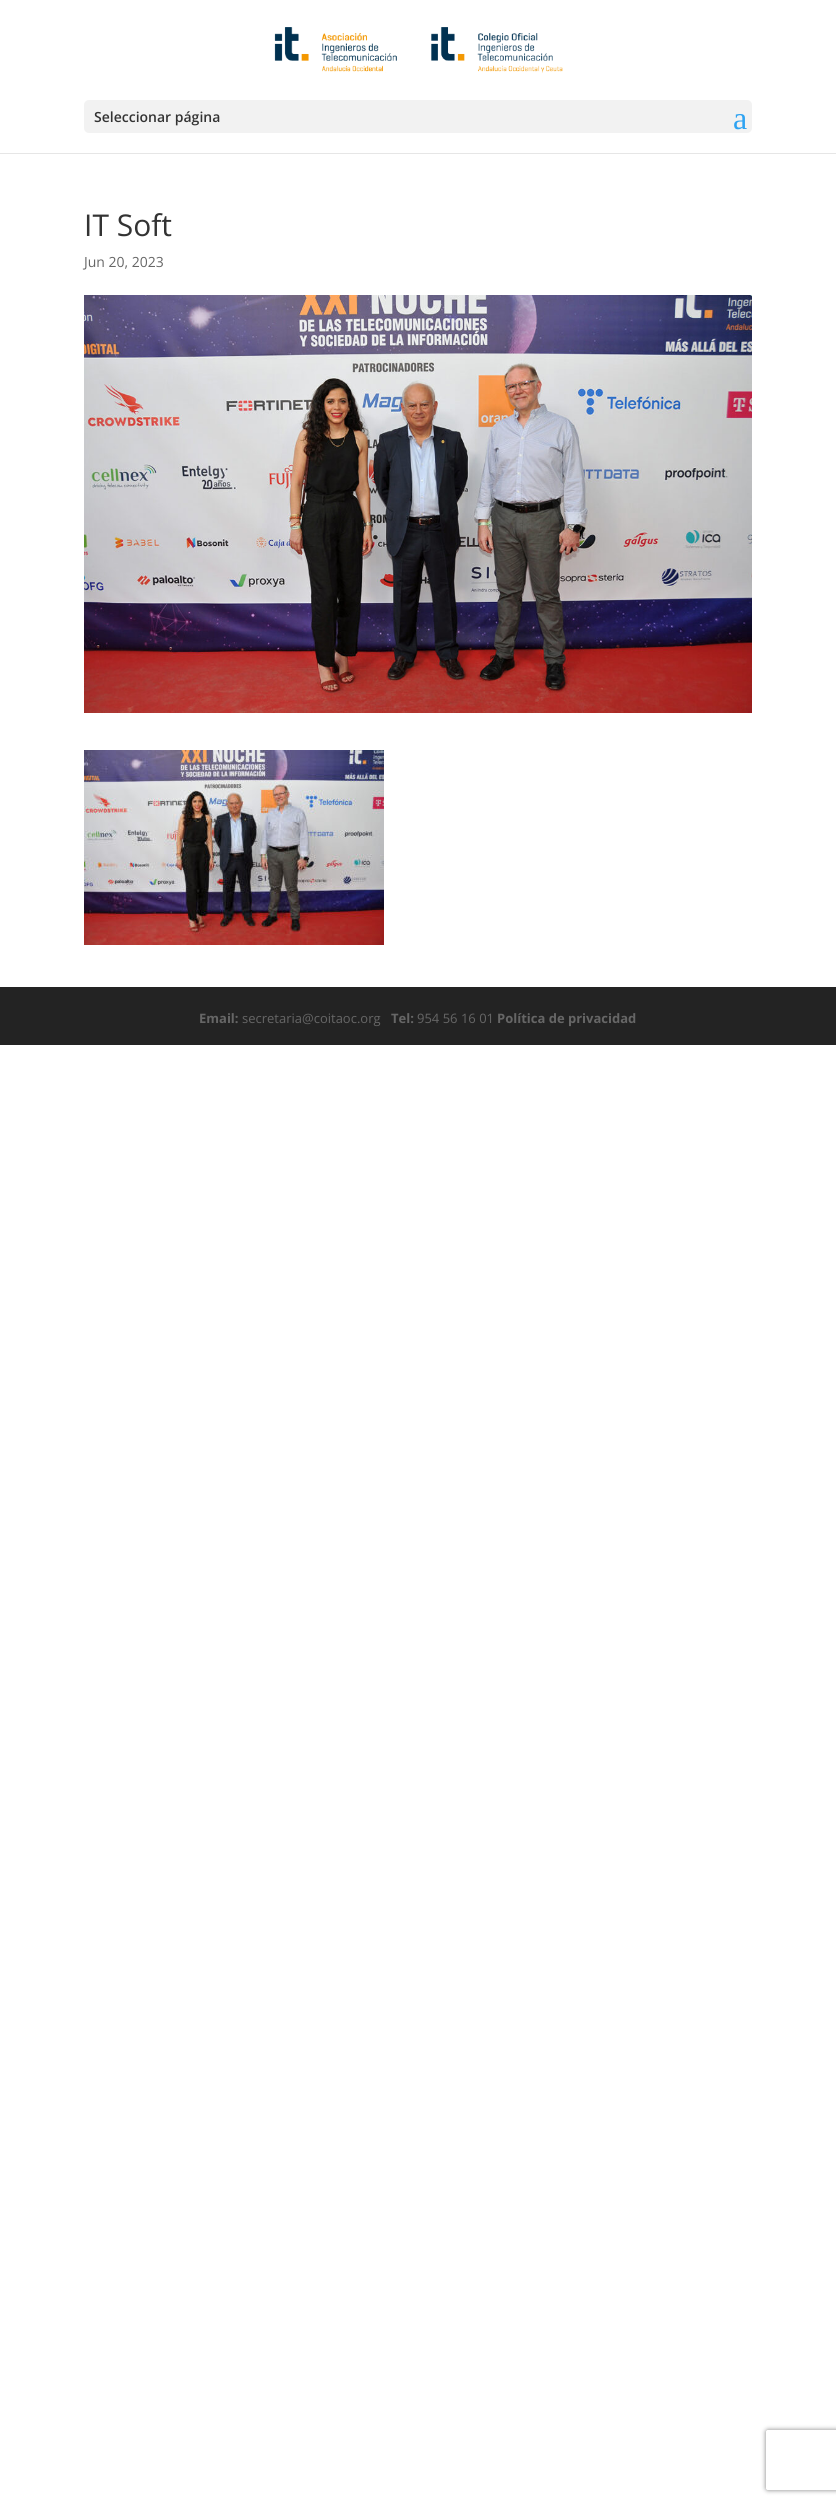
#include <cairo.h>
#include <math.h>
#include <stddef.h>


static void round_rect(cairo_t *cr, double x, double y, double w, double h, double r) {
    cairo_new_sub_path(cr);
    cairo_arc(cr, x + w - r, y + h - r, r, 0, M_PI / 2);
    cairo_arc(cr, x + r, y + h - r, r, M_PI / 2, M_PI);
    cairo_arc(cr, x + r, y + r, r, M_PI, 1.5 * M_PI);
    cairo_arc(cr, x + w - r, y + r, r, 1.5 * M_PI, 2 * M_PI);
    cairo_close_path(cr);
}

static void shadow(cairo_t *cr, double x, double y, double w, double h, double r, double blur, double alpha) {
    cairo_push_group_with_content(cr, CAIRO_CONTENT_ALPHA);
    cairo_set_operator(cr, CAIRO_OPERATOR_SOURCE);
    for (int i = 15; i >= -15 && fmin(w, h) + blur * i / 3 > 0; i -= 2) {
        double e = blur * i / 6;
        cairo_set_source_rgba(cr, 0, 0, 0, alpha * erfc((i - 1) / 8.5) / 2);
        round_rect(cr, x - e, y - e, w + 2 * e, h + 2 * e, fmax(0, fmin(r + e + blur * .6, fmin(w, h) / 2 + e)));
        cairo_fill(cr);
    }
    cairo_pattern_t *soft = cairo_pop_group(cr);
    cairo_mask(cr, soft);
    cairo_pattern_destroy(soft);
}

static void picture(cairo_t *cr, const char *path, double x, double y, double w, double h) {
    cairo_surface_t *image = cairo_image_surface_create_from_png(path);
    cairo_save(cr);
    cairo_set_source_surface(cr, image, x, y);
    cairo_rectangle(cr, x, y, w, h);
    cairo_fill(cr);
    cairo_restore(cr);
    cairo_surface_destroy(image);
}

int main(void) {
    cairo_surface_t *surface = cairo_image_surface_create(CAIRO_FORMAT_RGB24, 836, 2504);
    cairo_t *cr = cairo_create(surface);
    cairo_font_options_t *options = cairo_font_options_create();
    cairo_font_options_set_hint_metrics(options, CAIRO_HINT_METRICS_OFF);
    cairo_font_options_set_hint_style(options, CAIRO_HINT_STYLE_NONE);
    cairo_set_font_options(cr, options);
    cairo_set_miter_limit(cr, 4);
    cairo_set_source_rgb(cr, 1, 1, 1);
    cairo_paint(cr);
    cairo_set_source_rgb(cr, 0.902, 0.902, 0.902);
    cairo_rectangle(cr, 0, 153, 836, 1);
    cairo_fill(cr);
    picture(cr, "img1.png", 274, 27, 289, 46);
    cairo_set_source_rgb(cr, 0.949, 0.949, 0.949);
    round_rect(cr, 84, 100, 668, 33, 5);
    cairo_fill(cr);
    cairo_select_font_face(cr, "Open Sans SemiBold", CAIRO_FONT_SLANT_NORMAL, CAIRO_FONT_WEIGHT_NORMAL);
    cairo_set_font_size(cr, 14);
    cairo_set_source_rgb(cr, 0.2, 0.2, 0.2);
    cairo_move_to(cr, 94, 122);
    cairo_show_text(cr, "Seleccionar página");
    cairo_select_font_face(cr, "Liberation Serif", CAIRO_FONT_SLANT_NORMAL, CAIRO_FONT_WEIGHT_NORMAL);
    cairo_set_font_size(cr, 32);
    cairo_set_source_rgb(cr, 0.18, 0.639, 0.949);
    cairo_move_to(cr, 733, 129);
    cairo_show_text(cr, "a");
    cairo_select_font_face(cr, "Open Sans", CAIRO_FONT_SLANT_NORMAL, CAIRO_FONT_WEIGHT_NORMAL);
    cairo_set_font_size(cr, 30);
    cairo_set_source_rgb(cr, 0.2, 0.2, 0.2);
    cairo_move_to(cr, 84, 236);
    cairo_show_text(cr, "IT Soft");
    cairo_set_font_size(cr, 14);
    cairo_set_source_rgb(cr, 0.4, 0.4, 0.4);
    cairo_move_to(cr, 84, 267);
    cairo_show_text(cr, "Jun 20, 2023");
    picture(cr, "img2.png", 84, 295, 668, 418);
    picture(cr, "img3.png", 84, 750, 300, 195);
    cairo_set_source_rgb(cr, 0.137, 0.137, 0.137);
    cairo_rectangle(cr, 0, 987, 836, 58);
    cairo_fill(cr);
    cairo_select_font_face(cr, "Open Sans", CAIRO_FONT_SLANT_NORMAL, CAIRO_FONT_WEIGHT_BOLD);
    cairo_set_font_size(cr, 13);
    cairo_set_source_rgb(cr, 0.4, 0.4, 0.4);
    cairo_move_to(cr, 199, 1023);
    cairo_show_text(cr, "Email:");
    cairo_select_font_face(cr, "Open Sans", CAIRO_FONT_SLANT_NORMAL, CAIRO_FONT_WEIGHT_NORMAL);
    cairo_move_to(cr, 242, 1023);
    cairo_show_text(cr, "secretaria@coitaoc.org");
    cairo_select_font_face(cr, "Open Sans", CAIRO_FONT_SLANT_NORMAL, CAIRO_FONT_WEIGHT_BOLD);
    cairo_move_to(cr, 391, 1023);
    cairo_show_text(cr, "Tel:");
    cairo_select_font_face(cr, "Open Sans", CAIRO_FONT_SLANT_NORMAL, CAIRO_FONT_WEIGHT_NORMAL);
    cairo_move_to(cr, 417, 1023);
    cairo_show_text(cr, "954 56 16 01");
    cairo_select_font_face(cr, "Open Sans", CAIRO_FONT_SLANT_NORMAL, CAIRO_FONT_WEIGHT_BOLD);
    cairo_move_to(cr, 497, 1023);
    cairo_show_text(cr, "Política de privacidad");
    cairo_save(cr);
    cairo_set_fill_rule(cr, CAIRO_FILL_RULE_EVEN_ODD);
    cairo_new_path(cr);
    cairo_move_to(cr, 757, 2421);
    cairo_line_to(cr, 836, 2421);
    cairo_line_to(cr, 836, 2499);
    cairo_line_to(cr, 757, 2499);
    cairo_close_path(cr);
    cairo_move_to(cr, 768, 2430);
    cairo_line_to(cr, 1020, 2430);
    cairo_curve_to(cr, 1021, 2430, 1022, 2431, 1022, 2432);
    cairo_line_to(cr, 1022, 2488);
    cairo_curve_to(cr, 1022, 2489, 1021, 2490, 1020, 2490);
    cairo_line_to(cr, 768, 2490);
    cairo_curve_to(cr, 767, 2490, 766, 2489, 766, 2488);
    cairo_line_to(cr, 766, 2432);
    cairo_curve_to(cr, 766, 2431, 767, 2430, 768, 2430);
    cairo_close_path(cr);
    cairo_clip(cr);
    cairo_set_source_rgb(cr, 0.502, 0.502, 0.502);
    shadow(cr, 766, 2430, 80, 60, 2, 2.5, 1);
    cairo_restore(cr);
    cairo_surface_write_to_png(surface, "page.png");
    cairo_font_options_destroy(options);
    cairo_destroy(cr);
    cairo_surface_destroy(surface);
    return 0;
}
